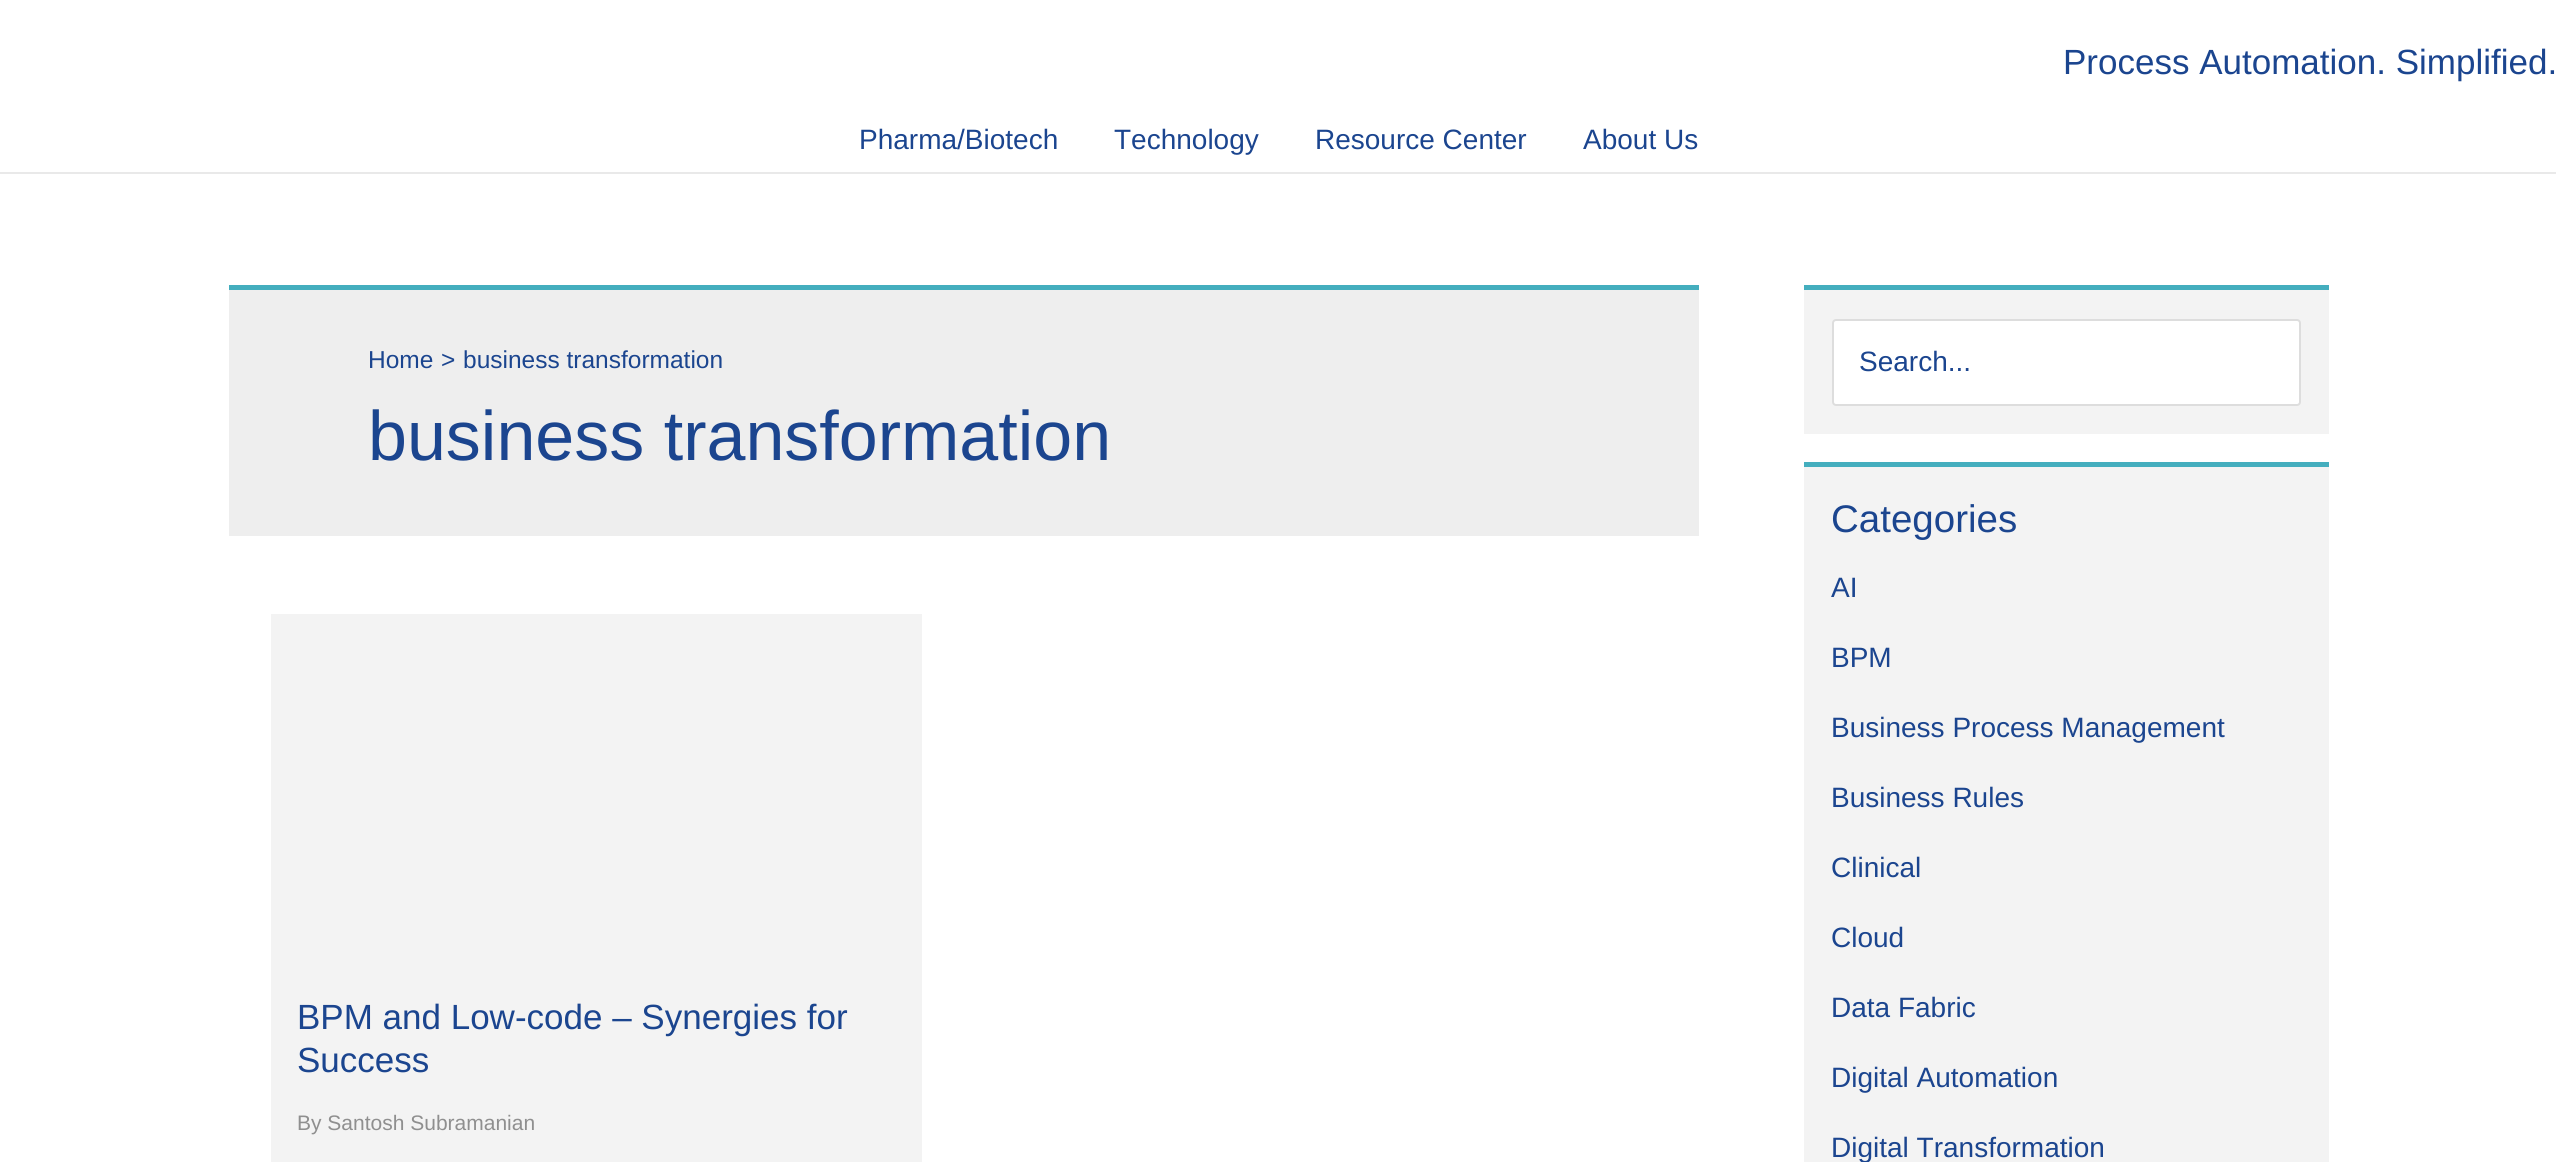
#include <cairo.h>
#include <math.h>
#include <stddef.h>


static void round_rect(cairo_t *cr, double x, double y, double w, double h, double r) {
    cairo_new_sub_path(cr);
    cairo_arc(cr, x + w - r, y + h - r, r, 0, M_PI / 2);
    cairo_arc(cr, x + r, y + h - r, r, M_PI / 2, M_PI);
    cairo_arc(cr, x + r, y + r, r, M_PI, 1.5 * M_PI);
    cairo_arc(cr, x + w - r, y + r, r, 1.5 * M_PI, 2 * M_PI);
    cairo_close_path(cr);
}

int main(void) {
    cairo_surface_t *surface = cairo_image_surface_create(CAIRO_FORMAT_RGB24, 2556, 1162);
    cairo_t *cr = cairo_create(surface);
    cairo_font_options_t *options = cairo_font_options_create();
    cairo_font_options_set_hint_metrics(options, CAIRO_HINT_METRICS_OFF);
    cairo_font_options_set_hint_style(options, CAIRO_HINT_STYLE_NONE);
    cairo_set_font_options(cr, options);
    cairo_set_miter_limit(cr, 4);
    cairo_set_source_rgb(cr, 1, 1, 1);
    cairo_paint(cr);
    cairo_select_font_face(cr, "Liberation Sans", CAIRO_FONT_SLANT_NORMAL, CAIRO_FONT_WEIGHT_NORMAL);
    cairo_set_font_size(cr, 35);
    cairo_set_source_rgb(cr, 0.106, 0.271, 0.561);
    cairo_move_to(cr, 2063, 74);
    cairo_show_text(cr, "Process Automation. Simplified.");
    cairo_set_source_rgb(cr, 0.914, 0.914, 0.914);
    cairo_rectangle(cr, 0, 172, 2556, 2);
    cairo_fill(cr);
    cairo_set_font_size(cr, 28);
    cairo_set_source_rgb(cr, 0.106, 0.271, 0.561);
    cairo_move_to(cr, 859, 149);
    cairo_show_text(cr, "Pharma/Biotech");
    cairo_move_to(cr, 1114, 149);
    cairo_show_text(cr, "Technology");
    cairo_move_to(cr, 1315, 149);
    cairo_show_text(cr, "Resource Center");
    cairo_move_to(cr, 1583, 149);
    cairo_show_text(cr, "About Us");
    cairo_set_source_rgb(cr, 0.933, 0.933, 0.933);
    cairo_rectangle(cr, 229, 290, 1470, 246);
    cairo_fill(cr);
    cairo_set_source_rgb(cr, 0.267, 0.682, 0.745);
    cairo_rectangle(cr, 229, 285, 1470, 5);
    cairo_fill(cr);
    cairo_set_font_size(cr, 24.5);
    cairo_set_source_rgb(cr, 0.106, 0.271, 0.561);
    cairo_move_to(cr, 368, 368);
    cairo_show_text(cr, "Home");
    cairo_move_to(cr, 441, 368);
    cairo_show_text(cr, ">");
    cairo_move_to(cr, 463, 368);
    cairo_show_text(cr, "business transformation");
    cairo_set_font_size(cr, 70);
    cairo_move_to(cr, 368, 460);
    cairo_show_text(cr, "business transformation");
    cairo_set_source_rgb(cr, 0.953, 0.953, 0.953);
    cairo_rectangle(cr, 271, 614, 651, 548);
    cairo_fill(cr);
    cairo_set_font_size(cr, 35);
    cairo_set_source_rgb(cr, 0.106, 0.271, 0.561);
    cairo_move_to(cr, 297, 1029);
    cairo_show_text(cr, "BPM and Low-code – Synergies for");
    cairo_move_to(cr, 297, 1072);
    cairo_show_text(cr, "Success");
    cairo_set_font_size(cr, 21);
    cairo_set_source_rgb(cr, 0.561, 0.561, 0.561);
    cairo_move_to(cr, 297, 1130);
    cairo_show_text(cr, "By Santosh Subramanian");
    cairo_set_source_rgb(cr, 0.953, 0.953, 0.953);
    cairo_rectangle(cr, 1804, 290, 525, 144);
    cairo_fill(cr);
    cairo_set_source_rgb(cr, 0.267, 0.682, 0.745);
    cairo_rectangle(cr, 1804, 285, 525, 5);
    cairo_fill(cr);
    cairo_set_source_rgb(cr, 1, 1, 1);
    round_rect(cr, 1833, 320, 467, 85, 3);
    cairo_fill_preserve(cr);
    cairo_set_source_rgb(cr, 0.867, 0.867, 0.867);
    cairo_stroke(cr);
    cairo_set_font_size(cr, 28);
    cairo_set_source_rgb(cr, 0.106, 0.271, 0.561);
    cairo_move_to(cr, 1859, 371);
    cairo_show_text(cr, "Search...");
    cairo_set_source_rgb(cr, 0.953, 0.953, 0.953);
    cairo_rectangle(cr, 1804, 467, 525, 695);
    cairo_fill(cr);
    cairo_set_source_rgb(cr, 0.267, 0.682, 0.745);
    cairo_rectangle(cr, 1804, 462, 525, 5);
    cairo_fill(cr);
    cairo_set_font_size(cr, 38.5);
    cairo_set_source_rgb(cr, 0.106, 0.271, 0.561);
    cairo_move_to(cr, 1831, 532);
    cairo_show_text(cr, "Categories");
    cairo_set_font_size(cr, 28);
    cairo_move_to(cr, 1831, 597);
    cairo_show_text(cr, "AI");
    cairo_move_to(cr, 1831, 667);
    cairo_show_text(cr, "BPM");
    cairo_move_to(cr, 1831, 737);
    cairo_show_text(cr, "Business Process Management");
    cairo_move_to(cr, 1831, 807);
    cairo_show_text(cr, "Business Rules");
    cairo_move_to(cr, 1831, 877);
    cairo_show_text(cr, "Clinical");
    cairo_move_to(cr, 1831, 947);
    cairo_show_text(cr, "Cloud");
    cairo_move_to(cr, 1831, 1017);
    cairo_show_text(cr, "Data Fabric");
    cairo_move_to(cr, 1831, 1087);
    cairo_show_text(cr, "Digital Automation");
    cairo_move_to(cr, 1831, 1157);
    cairo_show_text(cr, "Digital Transformation");
    cairo_surface_write_to_png(surface, "page.png");
    cairo_font_options_destroy(options);
    cairo_destroy(cr);
    cairo_surface_destroy(surface);
    return 0;
}
